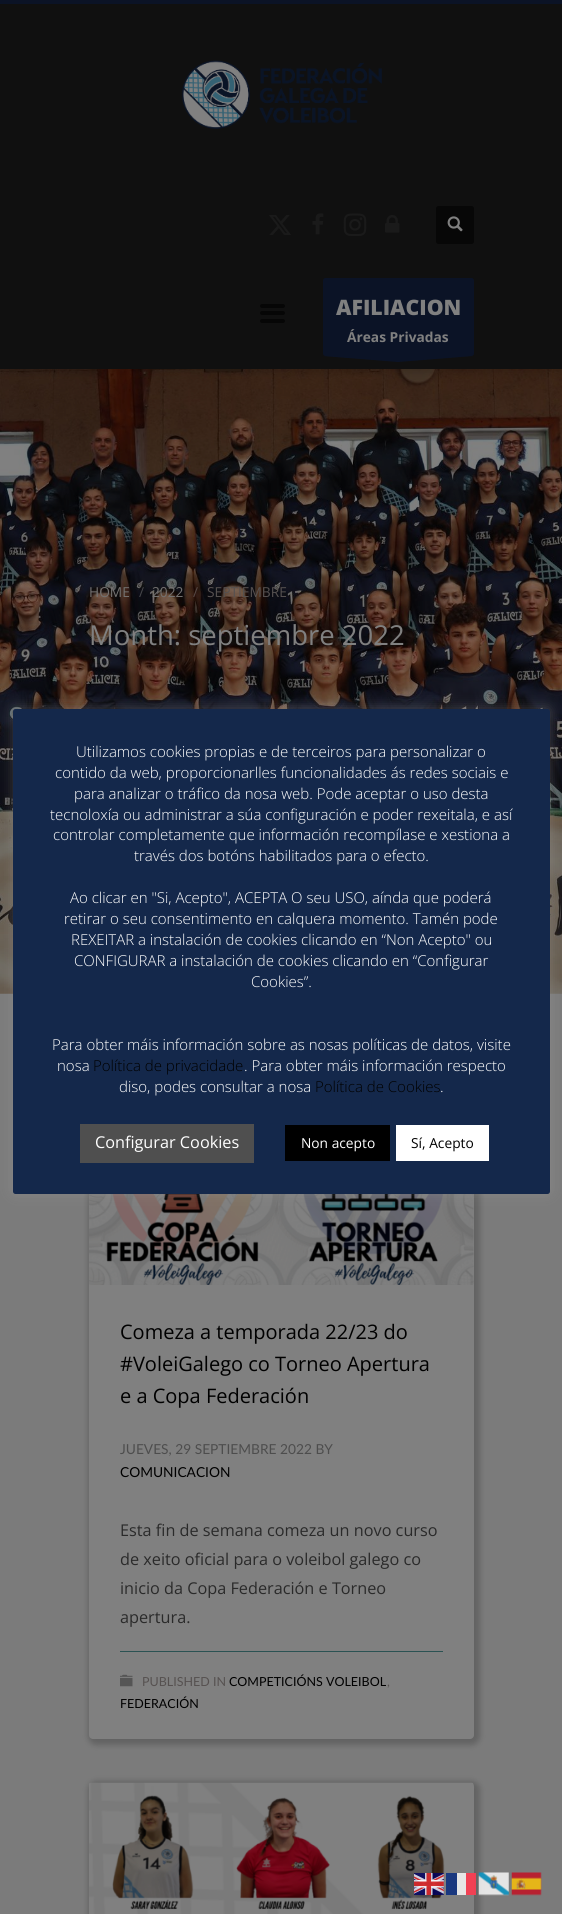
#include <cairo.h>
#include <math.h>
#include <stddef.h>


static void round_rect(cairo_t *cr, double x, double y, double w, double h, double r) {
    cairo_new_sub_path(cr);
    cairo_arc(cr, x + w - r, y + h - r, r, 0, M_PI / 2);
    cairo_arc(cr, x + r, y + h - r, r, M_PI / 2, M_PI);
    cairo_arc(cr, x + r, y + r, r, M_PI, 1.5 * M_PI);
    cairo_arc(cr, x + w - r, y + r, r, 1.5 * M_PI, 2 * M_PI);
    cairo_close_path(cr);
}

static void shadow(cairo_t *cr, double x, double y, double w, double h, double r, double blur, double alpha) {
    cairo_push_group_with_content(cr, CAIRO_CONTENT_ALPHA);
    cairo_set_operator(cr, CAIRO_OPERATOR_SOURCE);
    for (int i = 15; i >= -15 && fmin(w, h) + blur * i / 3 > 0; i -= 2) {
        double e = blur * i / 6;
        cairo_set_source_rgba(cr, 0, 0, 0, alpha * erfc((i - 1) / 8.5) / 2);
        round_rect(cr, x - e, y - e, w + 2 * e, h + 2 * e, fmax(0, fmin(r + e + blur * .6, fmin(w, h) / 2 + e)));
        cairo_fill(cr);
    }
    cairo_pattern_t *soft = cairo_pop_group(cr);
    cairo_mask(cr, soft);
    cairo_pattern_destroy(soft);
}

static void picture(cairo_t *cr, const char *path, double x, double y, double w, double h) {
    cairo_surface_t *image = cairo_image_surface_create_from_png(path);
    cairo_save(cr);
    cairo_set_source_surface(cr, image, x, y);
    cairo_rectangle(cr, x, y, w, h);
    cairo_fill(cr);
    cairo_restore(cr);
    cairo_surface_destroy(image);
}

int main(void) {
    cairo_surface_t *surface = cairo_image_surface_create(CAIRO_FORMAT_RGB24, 562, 1914);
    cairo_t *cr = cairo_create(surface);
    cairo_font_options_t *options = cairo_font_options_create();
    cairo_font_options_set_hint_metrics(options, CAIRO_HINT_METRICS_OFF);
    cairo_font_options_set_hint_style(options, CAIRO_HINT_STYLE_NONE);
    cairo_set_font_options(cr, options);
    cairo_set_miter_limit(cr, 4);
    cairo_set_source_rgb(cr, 0.482, 0.482, 0.482);
    cairo_paint(cr);
    picture(cr, "img7.png", 0, 369, 562, 625);
    cairo_set_source_rgb(cr, 0, 0, 0);
    shadow(cr, 0, 4, 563, 369, 0, 3, 0.1);
    cairo_set_source_rgb(cr, 0.063, 0.063, 0.063);
    cairo_rectangle(cr, 0, 4, 562, 365);
    cairo_fill(cr);
    cairo_set_source_rgb(cr, 0.043, 0.078, 0.149);
    cairo_rectangle(cr, 0, 0, 562, 4);
    cairo_fill(cr);
    picture(cr, "img1.png", 181, 60, 201, 69);
    picture(cr, "img2.png", 269, 215, 22, 20);
    picture(cr, "img3.png", 312, 213, 12, 22);
    picture(cr, "img4.png", 343, 213, 24, 23);
    picture(cr, "img5.png", 385, 215, 15, 18);
    cairo_set_source_rgb(cr, 0.031, 0.031, 0.031);
    round_rect(cr, 436, 206, 38, 38, 2.5);
    cairo_fill(cr);
    picture(cr, "img6.png", 447, 216, 16, 16);
    cairo_set_source_rgb(cr, 0.027, 0.027, 0.027);
    round_rect(cr, 260, 304, 25, 4, 2);
    cairo_fill(cr);
    round_rect(cr, 260, 311, 25, 4, 2);
    cairo_fill(cr);
    round_rect(cr, 260, 319, 25, 4, 2);
    cairo_fill(cr);
    cairo_set_source_rgb(cr, 0.043, 0.078, 0.149);
    round_rect(cr, 323, 278, 151, 78, 2.5);
    cairo_fill(cr);
    cairo_select_font_face(cr, "Open Sans ExtraBold", CAIRO_FONT_SLANT_NORMAL, CAIRO_FONT_WEIGHT_NORMAL);
    cairo_set_font_size(cr, 21.25);
    cairo_set_source_rgb(cr, 0.502, 0.502, 0.502);
    cairo_move_to(cr, 336, 315);
    cairo_show_text(cr, "AFILIACION");
    cairo_select_font_face(cr, "Open Sans", CAIRO_FONT_SLANT_NORMAL, CAIRO_FONT_WEIGHT_BOLD);
    cairo_set_font_size(cr, 13.75);
    cairo_move_to(cr, 347, 342);
    cairo_show_text(cr, "Áreas Privadas");
    cairo_set_source_rgb(cr, 0.043, 0.078, 0.149);
    cairo_set_fill_rule(cr, CAIRO_FILL_RULE_EVEN_ODD);
    cairo_new_path(cr);
    cairo_move_to(cr, 473, 356);
    cairo_line_to(cr, 398, 362);
    cairo_line_to(cr, 322, 356);
    cairo_close_path(cr);
    cairo_fill(cr);
    cairo_select_font_face(cr, "Open Sans", CAIRO_FONT_SLANT_NORMAL, CAIRO_FONT_WEIGHT_NORMAL);
    cairo_set_source_rgb(cr, 0.455, 0.447, 0.443);
    cairo_move_to(cr, 89, 597);
    cairo_show_text(cr, "HOME");
    cairo_set_source_rgb(cr, 0.275, 0.278, 0.29);
    cairo_move_to(cr, 139, 597);
    cairo_show_text(cr, "/");
    cairo_set_source_rgb(cr, 0.455, 0.447, 0.443);
    cairo_move_to(cr, 152, 597);
    cairo_show_text(cr, "2022");
    cairo_set_source_rgb(cr, 0.337, 0.29, 0.275);
    cairo_move_to(cr, 193, 597);
    cairo_show_text(cr, "/");
    cairo_set_source_rgb(cr, 0.337, 0.318, 0.314);
    cairo_move_to(cr, 207, 597);
    cairo_show_text(cr, "SEPTIEMBRE");
    cairo_set_font_size(cr, 27.5);
    cairo_set_source_rgb(cr, 0.502, 0.502, 0.502);
    cairo_move_to(cr, 89, 645);
    cairo_show_text(cr, "Month: septiembre 2022");
    cairo_set_source_rgb(cr, 0, 0, 0);
    shadow(cr, 88, 1068, 392, 677, 8, 3, 0.2);
    cairo_set_source_rgb(cr, 0.502, 0.502, 0.502);
    round_rect(cr, 89, 1069, 385, 670, 4);
    cairo_fill(cr);
    picture(cr, "img8.png", 89, 1194, 385, 91);
    cairo_set_font_size(cr, 20);
    cairo_set_source_rgb(cr, 0, 0, 0);
    cairo_move_to(cr, 120, 1339);
    cairo_show_text(cr, "Comeza a temporada 22/23 do");
    cairo_move_to(cr, 120, 1371);
    cairo_show_text(cr, "#VoleiGalego co Torneo Apertura");
    cairo_move_to(cr, 120, 1403);
    cairo_show_text(cr, "e a Copa Federación");
    cairo_select_font_face(cr, "Lato", CAIRO_FONT_SLANT_NORMAL, CAIRO_FONT_WEIGHT_NORMAL);
    cairo_set_font_size(cr, 13.75);
    cairo_set_source_rgb(cr, 0.302, 0.302, 0.302);
    cairo_move_to(cr, 120, 1454);
    cairo_show_text(cr, "JUEVES, 29 SEPTIEMBRE 2022 BY");
    cairo_set_source_rgb(cr, 0, 0, 0);
    cairo_move_to(cr, 120, 1477);
    cairo_show_text(cr, "COMUNICACION");
    cairo_set_source_rgb(cr, 0.169, 0.322, 0.325);
    cairo_rectangle(cr, 120, 1651, 323, 1);
    cairo_fill(cr);
    cairo_select_font_face(cr, "Open Sans", CAIRO_FONT_SLANT_NORMAL, CAIRO_FONT_WEIGHT_NORMAL);
    cairo_set_font_size(cr, 16.25);
    cairo_set_source_rgb(cr, 0.165, 0.165, 0.165);
    cairo_move_to(cr, 120, 1536);
    cairo_show_text(cr, "Esta fin de semana comeza un novo curso");
    cairo_move_to(cr, 120, 1565);
    cairo_show_text(cr, "de xeito oficial para o voleibol galego co");
    cairo_move_to(cr, 120, 1594);
    cairo_show_text(cr, "inicio da Copa Federación e Torneo");
    cairo_move_to(cr, 120, 1623);
    cairo_show_text(cr, "apertura.");
    picture(cr, "img9.png", 120, 1674, 13, 13);
    cairo_select_font_face(cr, "Lato", CAIRO_FONT_SLANT_NORMAL, CAIRO_FONT_WEIGHT_NORMAL);
    cairo_set_font_size(cr, 12.5);
    cairo_set_source_rgb(cr, 0.337, 0.318, 0.314);
    cairo_move_to(cr, 142, 1686);
    cairo_show_text(cr, "PUBLISHED IN");
    cairo_set_source_rgb(cr, 0, 0, 0);
    cairo_move_to(cr, 229, 1686);
    cairo_show_text(cr, "COMPETICIÓNS VOLEIBOL");
    cairo_set_source_rgb(cr, 0.337, 0.318, 0.314);
    cairo_move_to(cr, 387, 1686);
    cairo_show_text(cr, ",");
    cairo_set_source_rgb(cr, 0, 0, 0);
    cairo_move_to(cr, 120, 1708);
    cairo_show_text(cr, "FEDERACIÓN");
    cairo_set_source_rgb(cr, 0, 0, 0);
    shadow(cr, 88, 1781, 392, 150, 8, 3, 0.2);
    cairo_set_source_rgb(cr, 0.502, 0.502, 0.502);
    round_rect(cr, 89, 1783, 385, 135, 4);
    cairo_fill(cr);
    picture(cr, "img10.png", 89, 1782, 385, 132);
    cairo_set_source_rgb(cr, 0.675, 0.671, 0.671);
    shadow(cr, 13, 708, 537, 485, 2.5, 6, 0.3);
    cairo_set_source_rgb(cr, 0.082, 0.157, 0.294);
    round_rect(cr, 13, 709, 537, 485, 2.5);
    cairo_fill(cr);
    cairo_select_font_face(cr, "Open Sans Light", CAIRO_FONT_SLANT_NORMAL, CAIRO_FONT_WEIGHT_NORMAL);
    cairo_set_font_size(cr, 15);
    cairo_set_source_rgb(cr, 1, 1, 1);
    cairo_move_to(cr, 76, 757);
    cairo_show_text(cr, "Utilizamos cookies propias e de terceiros para personalizar o");
    cairo_move_to(cr, 55, 778);
    cairo_show_text(cr, "contido da web, proporcionarlles funcionalidades ás redes sociais e");
    cairo_move_to(cr, 74, 799);
    cairo_show_text(cr, "para analizar o tráfico da nosa web. Pode aceptar o uso desta");
    cairo_move_to(cr, 50, 820);
    cairo_show_text(cr, "tecnoloxía ou administrar a súa configuración e poder rexeitala, e así");
    cairo_move_to(cr, 53, 840);
    cairo_show_text(cr, "controlar completamente que información recompílase e xestiona a");
    cairo_move_to(cr, 134, 861);
    cairo_show_text(cr, "través dos botóns habilitados para o efecto.");
    cairo_move_to(cr, 70, 903);
    cairo_show_text(cr, "Ao clicar en \"Si, Acepto\", ACEPTA O seu USO, aínda que poderá");
    cairo_move_to(cr, 64, 924);
    cairo_show_text(cr, "retirar o seu consentimento en calquera momento. Tamén pode");
    cairo_move_to(cr, 71, 945);
    cairo_show_text(cr, "REXEITAR a instalación de cookies clicando en “Non Acepto\" ou");
    cairo_move_to(cr, 74, 966);
    cairo_show_text(cr, "CONFIGURAR a instalación de cookies clicando en “Configurar");
    cairo_move_to(cr, 251, 987);
    cairo_show_text(cr, "Cookies”.");
    cairo_move_to(cr, 52, 1050);
    cairo_show_text(cr, "Para obter máis información sobre as nosas políticas de datos, visite");
    cairo_move_to(cr, 57, 1071);
    cairo_show_text(cr, "nosa");
    cairo_set_source_rgb(cr, 0, 0, 0);
    cairo_move_to(cr, 93, 1071);
    cairo_show_text(cr, "Política de privacidade");
    cairo_set_source_rgb(cr, 1, 1, 1);
    cairo_move_to(cr, 244, 1071);
    cairo_show_text(cr, ". Para obter máis información respecto");
    cairo_move_to(cr, 119, 1092);
    cairo_show_text(cr, "diso, podes consultar a nosa");
    cairo_set_source_rgb(cr, 0, 0, 0);
    cairo_move_to(cr, 315, 1092);
    cairo_show_text(cr, "Política de Cookies");
    cairo_set_source_rgb(cr, 1, 1, 1);
    cairo_move_to(cr, 440, 1092);
    cairo_show_text(cr, ".");
    cairo_set_source_rgb(cr, 0.31, 0.31, 0.31);
    cairo_rectangle(cr, 80, 1124, 174, 39);
    cairo_fill(cr);
    cairo_select_font_face(cr, "Open Sans", CAIRO_FONT_SLANT_NORMAL, CAIRO_FONT_WEIGHT_NORMAL);
    cairo_set_font_size(cr, 16.25);
    cairo_set_source_rgb(cr, 1, 1, 1);
    cairo_move_to(cr, 95, 1148);
    cairo_show_text(cr, "Configurar Cookies");
    cairo_set_source_rgb(cr, 0, 0, 0);
    cairo_rectangle(cr, 285, 1125, 105, 36);
    cairo_fill(cr);
    cairo_set_font_size(cr, 13.75);
    cairo_set_source_rgb(cr, 1, 1, 1);
    cairo_move_to(cr, 301, 1148);
    cairo_show_text(cr, "Non acepto");
    cairo_rectangle(cr, 396, 1125, 93, 36);
    cairo_fill(cr);
    cairo_set_source_rgb(cr, 0, 0, 0);
    cairo_move_to(cr, 411, 1148);
    cairo_show_text(cr, "Sí, Acepto");
    picture(cr, "img11.png", 414, 1873, 30, 22);
    cairo_set_source_rgb(cr, 0.102, 0.22, 0.498);
    cairo_rectangle(cr, 446, 1873, 11, 22);
    cairo_fill(cr);
    cairo_set_source_rgba(cr, 1, 1, 1, 0.8);
    cairo_rectangle(cr, 457, 1873, 19, 22);
    cairo_fill(cr);
    picture(cr, "img12.png", 478, 1872, 31, 24);
    picture(cr, "img13.png", 511, 1872, 31, 24);
    cairo_set_source_rgba(cr, 0.953, 0.094, 0.188, 0.8);
    cairo_rectangle(cr, 466, 1873, 10, 22);
    cairo_fill(cr);
    cairo_surface_write_to_png(surface, "page.png");
    cairo_font_options_destroy(options);
    cairo_destroy(cr);
    cairo_surface_destroy(surface);
    return 0;
}
